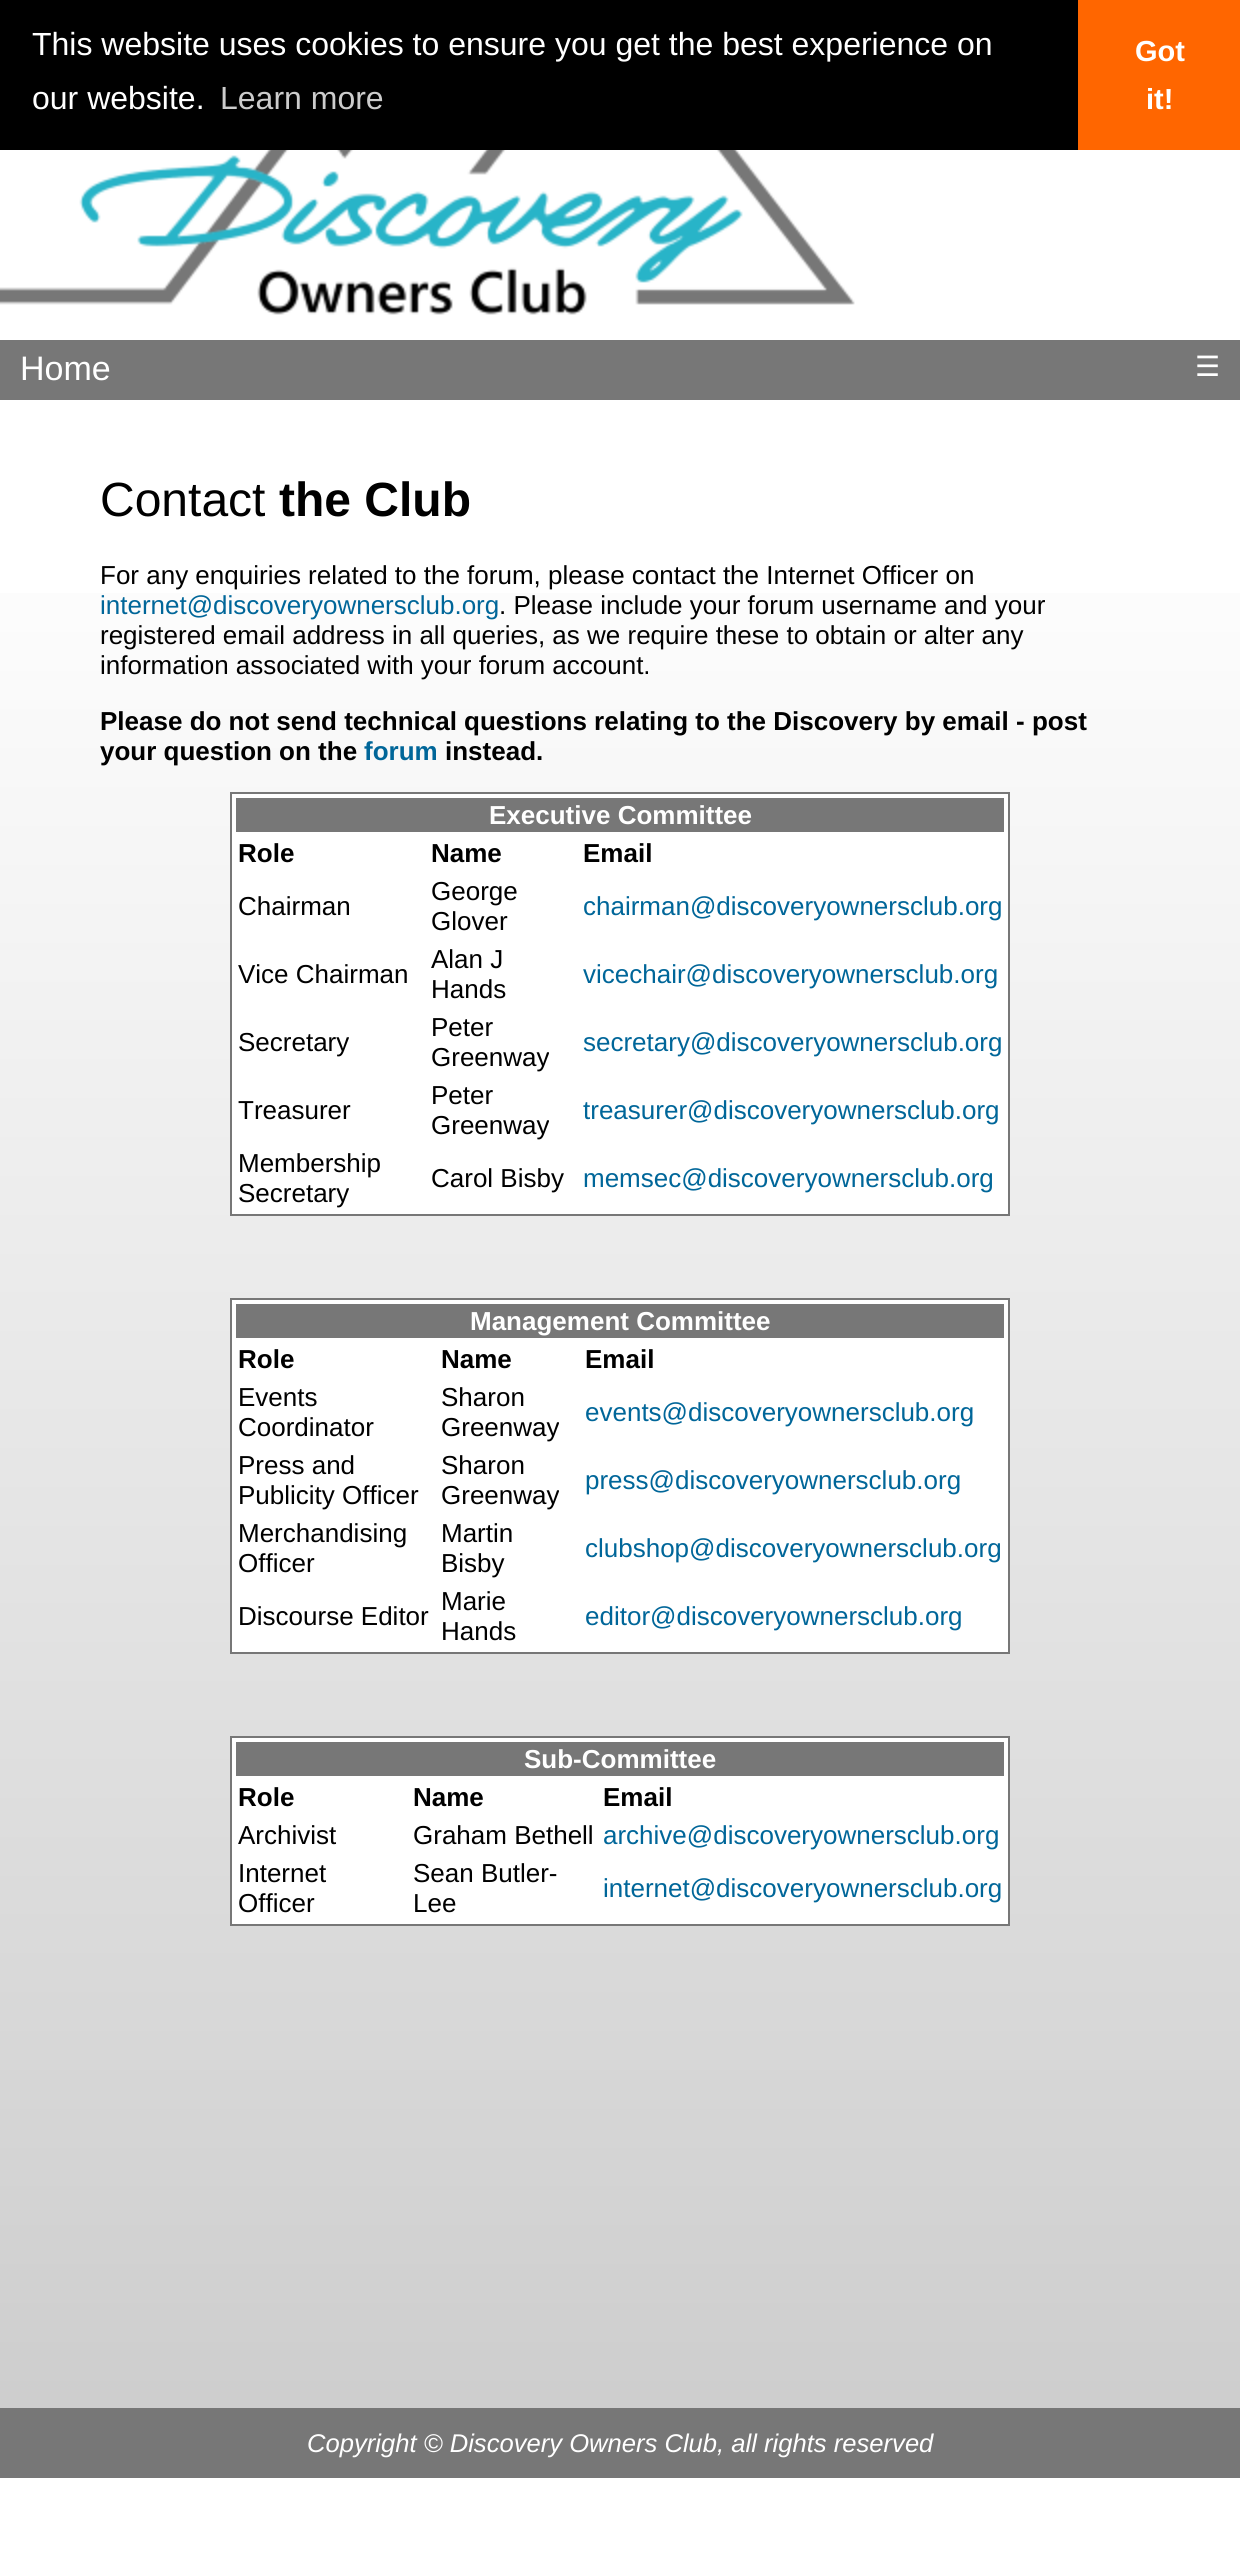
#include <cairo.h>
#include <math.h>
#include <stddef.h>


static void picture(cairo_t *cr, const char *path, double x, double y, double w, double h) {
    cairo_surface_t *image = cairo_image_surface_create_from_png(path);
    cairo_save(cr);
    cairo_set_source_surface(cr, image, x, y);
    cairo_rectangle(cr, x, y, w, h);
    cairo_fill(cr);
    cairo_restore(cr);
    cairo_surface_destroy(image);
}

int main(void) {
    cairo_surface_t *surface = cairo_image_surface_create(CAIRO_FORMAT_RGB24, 1240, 2569);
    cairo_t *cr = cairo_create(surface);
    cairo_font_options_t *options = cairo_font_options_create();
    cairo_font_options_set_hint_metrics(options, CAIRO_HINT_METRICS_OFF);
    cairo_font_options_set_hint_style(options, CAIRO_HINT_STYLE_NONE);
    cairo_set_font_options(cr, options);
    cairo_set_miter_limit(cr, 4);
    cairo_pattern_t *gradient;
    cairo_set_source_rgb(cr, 1, 1, 1);
    cairo_paint(cr);
    gradient = cairo_pattern_create_linear(620, 0, 620, 2478);
    cairo_pattern_add_color_stop_rgba(gradient, 0.2, 1, 1, 1, 1);
    cairo_pattern_add_color_stop_rgba(gradient, 1, 0.8, 0.8, 0.8, 1);
    cairo_set_source(cr, gradient);
    cairo_pattern_destroy(gradient);
    cairo_rectangle(cr, 0, 593, 1240, 1815);
    cairo_fill(cr);
    cairo_set_source_rgb(cr, 0, 0, 0);
    cairo_rectangle(cr, 0, 0, 1078, 150);
    cairo_fill(cr);
    cairo_select_font_face(cr, "Liberation Sans", CAIRO_FONT_SLANT_NORMAL, CAIRO_FONT_WEIGHT_NORMAL);
    cairo_set_font_size(cr, 32);
    cairo_set_source_rgb(cr, 1, 1, 1);
    cairo_move_to(cr, 32, 55);
    cairo_show_text(cr, "This website uses cookies to ensure you get the best experience on");
    cairo_move_to(cr, 32, 109);
    cairo_show_text(cr, "our website.");
    cairo_set_source_rgb(cr, 0.8, 0.8, 0.8);
    cairo_move_to(cr, 220, 109);
    cairo_show_text(cr, "Learn more");
    cairo_set_source_rgb(cr, 1, 0.4, 0);
    cairo_rectangle(cr, 1078, 0, 162, 150);
    cairo_fill(cr);
    cairo_select_font_face(cr, "Liberation Sans", CAIRO_FONT_SLANT_NORMAL, CAIRO_FONT_WEIGHT_BOLD);
    cairo_set_font_size(cr, 29);
    cairo_set_source_rgb(cr, 1, 1, 1);
    cairo_move_to(cr, 1135, 61);
    cairo_show_text(cr, "Got");
    cairo_move_to(cr, 1146, 109);
    cairo_show_text(cr, "it!");
    picture(cr, "img1.png", 0, 150, 855, 165);
    cairo_set_source_rgb(cr, 0.467, 0.467, 0.467);
    cairo_rectangle(cr, 0, 340, 1240, 60);
    cairo_fill(cr);
    cairo_select_font_face(cr, "Liberation Sans", CAIRO_FONT_SLANT_NORMAL, CAIRO_FONT_WEIGHT_NORMAL);
    cairo_set_font_size(cr, 34);
    cairo_set_source_rgb(cr, 1, 1, 1);
    cairo_move_to(cr, 20, 380);
    cairo_show_text(cr, "Home");
    cairo_select_font_face(cr, "DejaVu Sans", CAIRO_FONT_SLANT_NORMAL, CAIRO_FONT_WEIGHT_NORMAL);
    cairo_set_font_size(cr, 28);
    cairo_move_to(cr, 1195, 376);
    cairo_show_text(cr, "☰");
    cairo_select_font_face(cr, "Liberation Sans", CAIRO_FONT_SLANT_NORMAL, CAIRO_FONT_WEIGHT_NORMAL);
    cairo_set_font_size(cr, 48);
    cairo_set_source_rgb(cr, 0, 0, 0);
    cairo_move_to(cr, 100, 516);
    cairo_show_text(cr, "Contact");
    cairo_select_font_face(cr, "Liberation Sans", CAIRO_FONT_SLANT_NORMAL, CAIRO_FONT_WEIGHT_BOLD);
    cairo_move_to(cr, 279, 516);
    cairo_show_text(cr, "the Club");
    cairo_select_font_face(cr, "Liberation Sans", CAIRO_FONT_SLANT_NORMAL, CAIRO_FONT_WEIGHT_NORMAL);
    cairo_set_font_size(cr, 26);
    cairo_move_to(cr, 100, 584);
    cairo_show_text(cr, "For any enquiries related to the forum, please contact the Internet Officer on");
    cairo_set_source_rgb(cr, 0, 0.4, 0.6);
    cairo_move_to(cr, 100, 614);
    cairo_show_text(cr, "internet@discoveryownersclub.org");
    cairo_set_source_rgb(cr, 0, 0, 0);
    cairo_move_to(cr, 499, 614);
    cairo_show_text(cr, ". Please include your forum username and your");
    cairo_move_to(cr, 100, 644);
    cairo_show_text(cr, "registered email address in all queries, as we require these to obtain or alter any");
    cairo_move_to(cr, 100, 674);
    cairo_show_text(cr, "information associated with your forum account.");
    cairo_select_font_face(cr, "Liberation Sans", CAIRO_FONT_SLANT_NORMAL, CAIRO_FONT_WEIGHT_BOLD);
    cairo_move_to(cr, 100, 730);
    cairo_show_text(cr, "Please do not send technical questions relating to the Discovery by email - post");
    cairo_move_to(cr, 100, 760);
    cairo_show_text(cr, "your question on the");
    cairo_set_source_rgb(cr, 0, 0.4, 0.6);
    cairo_move_to(cr, 364, 760);
    cairo_show_text(cr, "forum");
    cairo_set_source_rgb(cr, 0, 0, 0);
    cairo_move_to(cr, 445, 760);
    cairo_show_text(cr, "instead.");
    cairo_set_source_rgb(cr, 1, 1, 1);
    cairo_rectangle(cr, 231, 793, 778, 422);
    cairo_fill_preserve(cr);
    cairo_set_source_rgb(cr, 0.467, 0.467, 0.467);
    cairo_stroke(cr);
    cairo_rectangle(cr, 236, 798, 768, 34);
    cairo_fill(cr);
    cairo_set_source_rgb(cr, 1, 1, 1);
    cairo_move_to(cr, 489, 824);
    cairo_show_text(cr, "Executive Committee");
    cairo_set_source_rgb(cr, 0, 0, 0);
    cairo_move_to(cr, 238, 862);
    cairo_show_text(cr, "Role");
    cairo_move_to(cr, 431, 862);
    cairo_show_text(cr, "Name");
    cairo_move_to(cr, 583, 862);
    cairo_show_text(cr, "Email");
    cairo_select_font_face(cr, "Liberation Sans", CAIRO_FONT_SLANT_NORMAL, CAIRO_FONT_WEIGHT_NORMAL);
    cairo_move_to(cr, 238, 915);
    cairo_show_text(cr, "Chairman");
    cairo_move_to(cr, 431, 900);
    cairo_show_text(cr, "George");
    cairo_move_to(cr, 431, 930);
    cairo_show_text(cr, "Glover");
    cairo_set_source_rgb(cr, 0, 0.4, 0.6);
    cairo_move_to(cr, 583, 915);
    cairo_show_text(cr, "chairman@discoveryownersclub.org");
    cairo_set_source_rgb(cr, 0, 0, 0);
    cairo_move_to(cr, 238, 983);
    cairo_show_text(cr, "Vice Chairman");
    cairo_move_to(cr, 431, 968);
    cairo_show_text(cr, "Alan J");
    cairo_move_to(cr, 431, 998);
    cairo_show_text(cr, "Hands");
    cairo_set_source_rgb(cr, 0, 0.4, 0.6);
    cairo_move_to(cr, 583, 983);
    cairo_show_text(cr, "vicechair@discoveryownersclub.org");
    cairo_set_source_rgb(cr, 0, 0, 0);
    cairo_move_to(cr, 238, 1051);
    cairo_show_text(cr, "Secretary");
    cairo_move_to(cr, 431, 1036);
    cairo_show_text(cr, "Peter");
    cairo_move_to(cr, 431, 1066);
    cairo_show_text(cr, "Greenway");
    cairo_set_source_rgb(cr, 0, 0.4, 0.6);
    cairo_move_to(cr, 583, 1051);
    cairo_show_text(cr, "secretary@discoveryownersclub.org");
    cairo_set_source_rgb(cr, 0, 0, 0);
    cairo_move_to(cr, 238, 1119);
    cairo_show_text(cr, "Treasurer");
    cairo_move_to(cr, 431, 1104);
    cairo_show_text(cr, "Peter");
    cairo_move_to(cr, 431, 1134);
    cairo_show_text(cr, "Greenway");
    cairo_set_source_rgb(cr, 0, 0.4, 0.6);
    cairo_move_to(cr, 583, 1119);
    cairo_show_text(cr, "treasurer@discoveryownersclub.org");
    cairo_set_source_rgb(cr, 0, 0, 0);
    cairo_move_to(cr, 238, 1172);
    cairo_show_text(cr, "Membership");
    cairo_move_to(cr, 238, 1202);
    cairo_show_text(cr, "Secretary");
    cairo_move_to(cr, 431, 1187);
    cairo_show_text(cr, "Carol Bisby");
    cairo_set_source_rgb(cr, 0, 0.4, 0.6);
    cairo_move_to(cr, 583, 1187);
    cairo_show_text(cr, "memsec@discoveryownersclub.org");
    cairo_set_source_rgb(cr, 1, 1, 1);
    cairo_rectangle(cr, 231, 1299, 778, 354);
    cairo_fill_preserve(cr);
    cairo_set_source_rgb(cr, 0.467, 0.467, 0.467);
    cairo_stroke(cr);
    cairo_rectangle(cr, 236, 1304, 768, 34);
    cairo_fill(cr);
    cairo_select_font_face(cr, "Liberation Sans", CAIRO_FONT_SLANT_NORMAL, CAIRO_FONT_WEIGHT_BOLD);
    cairo_set_source_rgb(cr, 1, 1, 1);
    cairo_move_to(cr, 470, 1330);
    cairo_show_text(cr, "Management Committee");
    cairo_set_source_rgb(cr, 0, 0, 0);
    cairo_move_to(cr, 238, 1368);
    cairo_show_text(cr, "Role");
    cairo_move_to(cr, 441, 1368);
    cairo_show_text(cr, "Name");
    cairo_move_to(cr, 585, 1368);
    cairo_show_text(cr, "Email");
    cairo_select_font_face(cr, "Liberation Sans", CAIRO_FONT_SLANT_NORMAL, CAIRO_FONT_WEIGHT_NORMAL);
    cairo_move_to(cr, 238, 1406);
    cairo_show_text(cr, "Events");
    cairo_move_to(cr, 238, 1436);
    cairo_show_text(cr, "Coordinator");
    cairo_move_to(cr, 441, 1406);
    cairo_show_text(cr, "Sharon");
    cairo_move_to(cr, 441, 1436);
    cairo_show_text(cr, "Greenway");
    cairo_set_source_rgb(cr, 0, 0.4, 0.6);
    cairo_move_to(cr, 585, 1421);
    cairo_show_text(cr, "events@discoveryownersclub.org");
    cairo_set_source_rgb(cr, 0, 0, 0);
    cairo_move_to(cr, 238, 1474);
    cairo_show_text(cr, "Press and");
    cairo_move_to(cr, 238, 1504);
    cairo_show_text(cr, "Publicity Officer");
    cairo_move_to(cr, 441, 1474);
    cairo_show_text(cr, "Sharon");
    cairo_move_to(cr, 441, 1504);
    cairo_show_text(cr, "Greenway");
    cairo_set_source_rgb(cr, 0, 0.4, 0.6);
    cairo_move_to(cr, 585, 1489);
    cairo_show_text(cr, "press@discoveryownersclub.org");
    cairo_set_source_rgb(cr, 0, 0, 0);
    cairo_move_to(cr, 238, 1542);
    cairo_show_text(cr, "Merchandising");
    cairo_move_to(cr, 238, 1572);
    cairo_show_text(cr, "Officer");
    cairo_move_to(cr, 441, 1542);
    cairo_show_text(cr, "Martin");
    cairo_move_to(cr, 441, 1572);
    cairo_show_text(cr, "Bisby");
    cairo_set_source_rgb(cr, 0, 0.4, 0.6);
    cairo_move_to(cr, 585, 1557);
    cairo_show_text(cr, "clubshop@discoveryownersclub.org");
    cairo_set_source_rgb(cr, 0, 0, 0);
    cairo_move_to(cr, 238, 1625);
    cairo_show_text(cr, "Discourse Editor");
    cairo_move_to(cr, 441, 1610);
    cairo_show_text(cr, "Marie");
    cairo_move_to(cr, 441, 1640);
    cairo_show_text(cr, "Hands");
    cairo_set_source_rgb(cr, 0, 0.4, 0.6);
    cairo_move_to(cr, 585, 1625);
    cairo_show_text(cr, "editor@discoveryownersclub.org");
    cairo_set_source_rgb(cr, 1, 1, 1);
    cairo_rectangle(cr, 231, 1737, 778, 188);
    cairo_fill_preserve(cr);
    cairo_set_source_rgb(cr, 0.467, 0.467, 0.467);
    cairo_stroke(cr);
    cairo_rectangle(cr, 236, 1742, 768, 34);
    cairo_fill(cr);
    cairo_select_font_face(cr, "Liberation Sans", CAIRO_FONT_SLANT_NORMAL, CAIRO_FONT_WEIGHT_BOLD);
    cairo_set_source_rgb(cr, 1, 1, 1);
    cairo_move_to(cr, 524, 1768);
    cairo_show_text(cr, "Sub-Committee");
    cairo_set_source_rgb(cr, 0, 0, 0);
    cairo_move_to(cr, 238, 1806);
    cairo_show_text(cr, "Role");
    cairo_move_to(cr, 413, 1806);
    cairo_show_text(cr, "Name");
    cairo_move_to(cr, 603, 1806);
    cairo_show_text(cr, "Email");
    cairo_select_font_face(cr, "Liberation Sans", CAIRO_FONT_SLANT_NORMAL, CAIRO_FONT_WEIGHT_NORMAL);
    cairo_move_to(cr, 238, 1844);
    cairo_show_text(cr, "Archivist");
    cairo_move_to(cr, 413, 1844);
    cairo_show_text(cr, "Graham Bethell");
    cairo_set_source_rgb(cr, 0, 0.4, 0.6);
    cairo_move_to(cr, 603, 1844);
    cairo_show_text(cr, "archive@discoveryownersclub.org");
    cairo_set_source_rgb(cr, 0, 0, 0);
    cairo_move_to(cr, 238, 1882);
    cairo_show_text(cr, "Internet");
    cairo_move_to(cr, 238, 1912);
    cairo_show_text(cr, "Officer");
    cairo_move_to(cr, 413, 1882);
    cairo_show_text(cr, "Sean Butler-");
    cairo_move_to(cr, 413, 1912);
    cairo_show_text(cr, "Lee");
    cairo_set_source_rgb(cr, 0, 0.4, 0.6);
    cairo_move_to(cr, 603, 1897);
    cairo_show_text(cr, "internet@discoveryownersclub.org");
    cairo_set_source_rgb(cr, 0.467, 0.467, 0.467);
    cairo_rectangle(cr, 0, 2408, 1240, 70);
    cairo_fill(cr);
    cairo_select_font_face(cr, "Liberation Sans", CAIRO_FONT_SLANT_ITALIC, CAIRO_FONT_WEIGHT_NORMAL);
    cairo_set_font_size(cr, 25.6);
    cairo_set_source_rgb(cr, 1, 1, 1);
    cairo_move_to(cr, 307, 2452);
    cairo_show_text(cr, "Copyright © Discovery Owners Club, all rights reserved");
    cairo_surface_write_to_png(surface, "page.png");
    cairo_font_options_destroy(options);
    cairo_destroy(cr);
    cairo_surface_destroy(surface);
    return 0;
}
